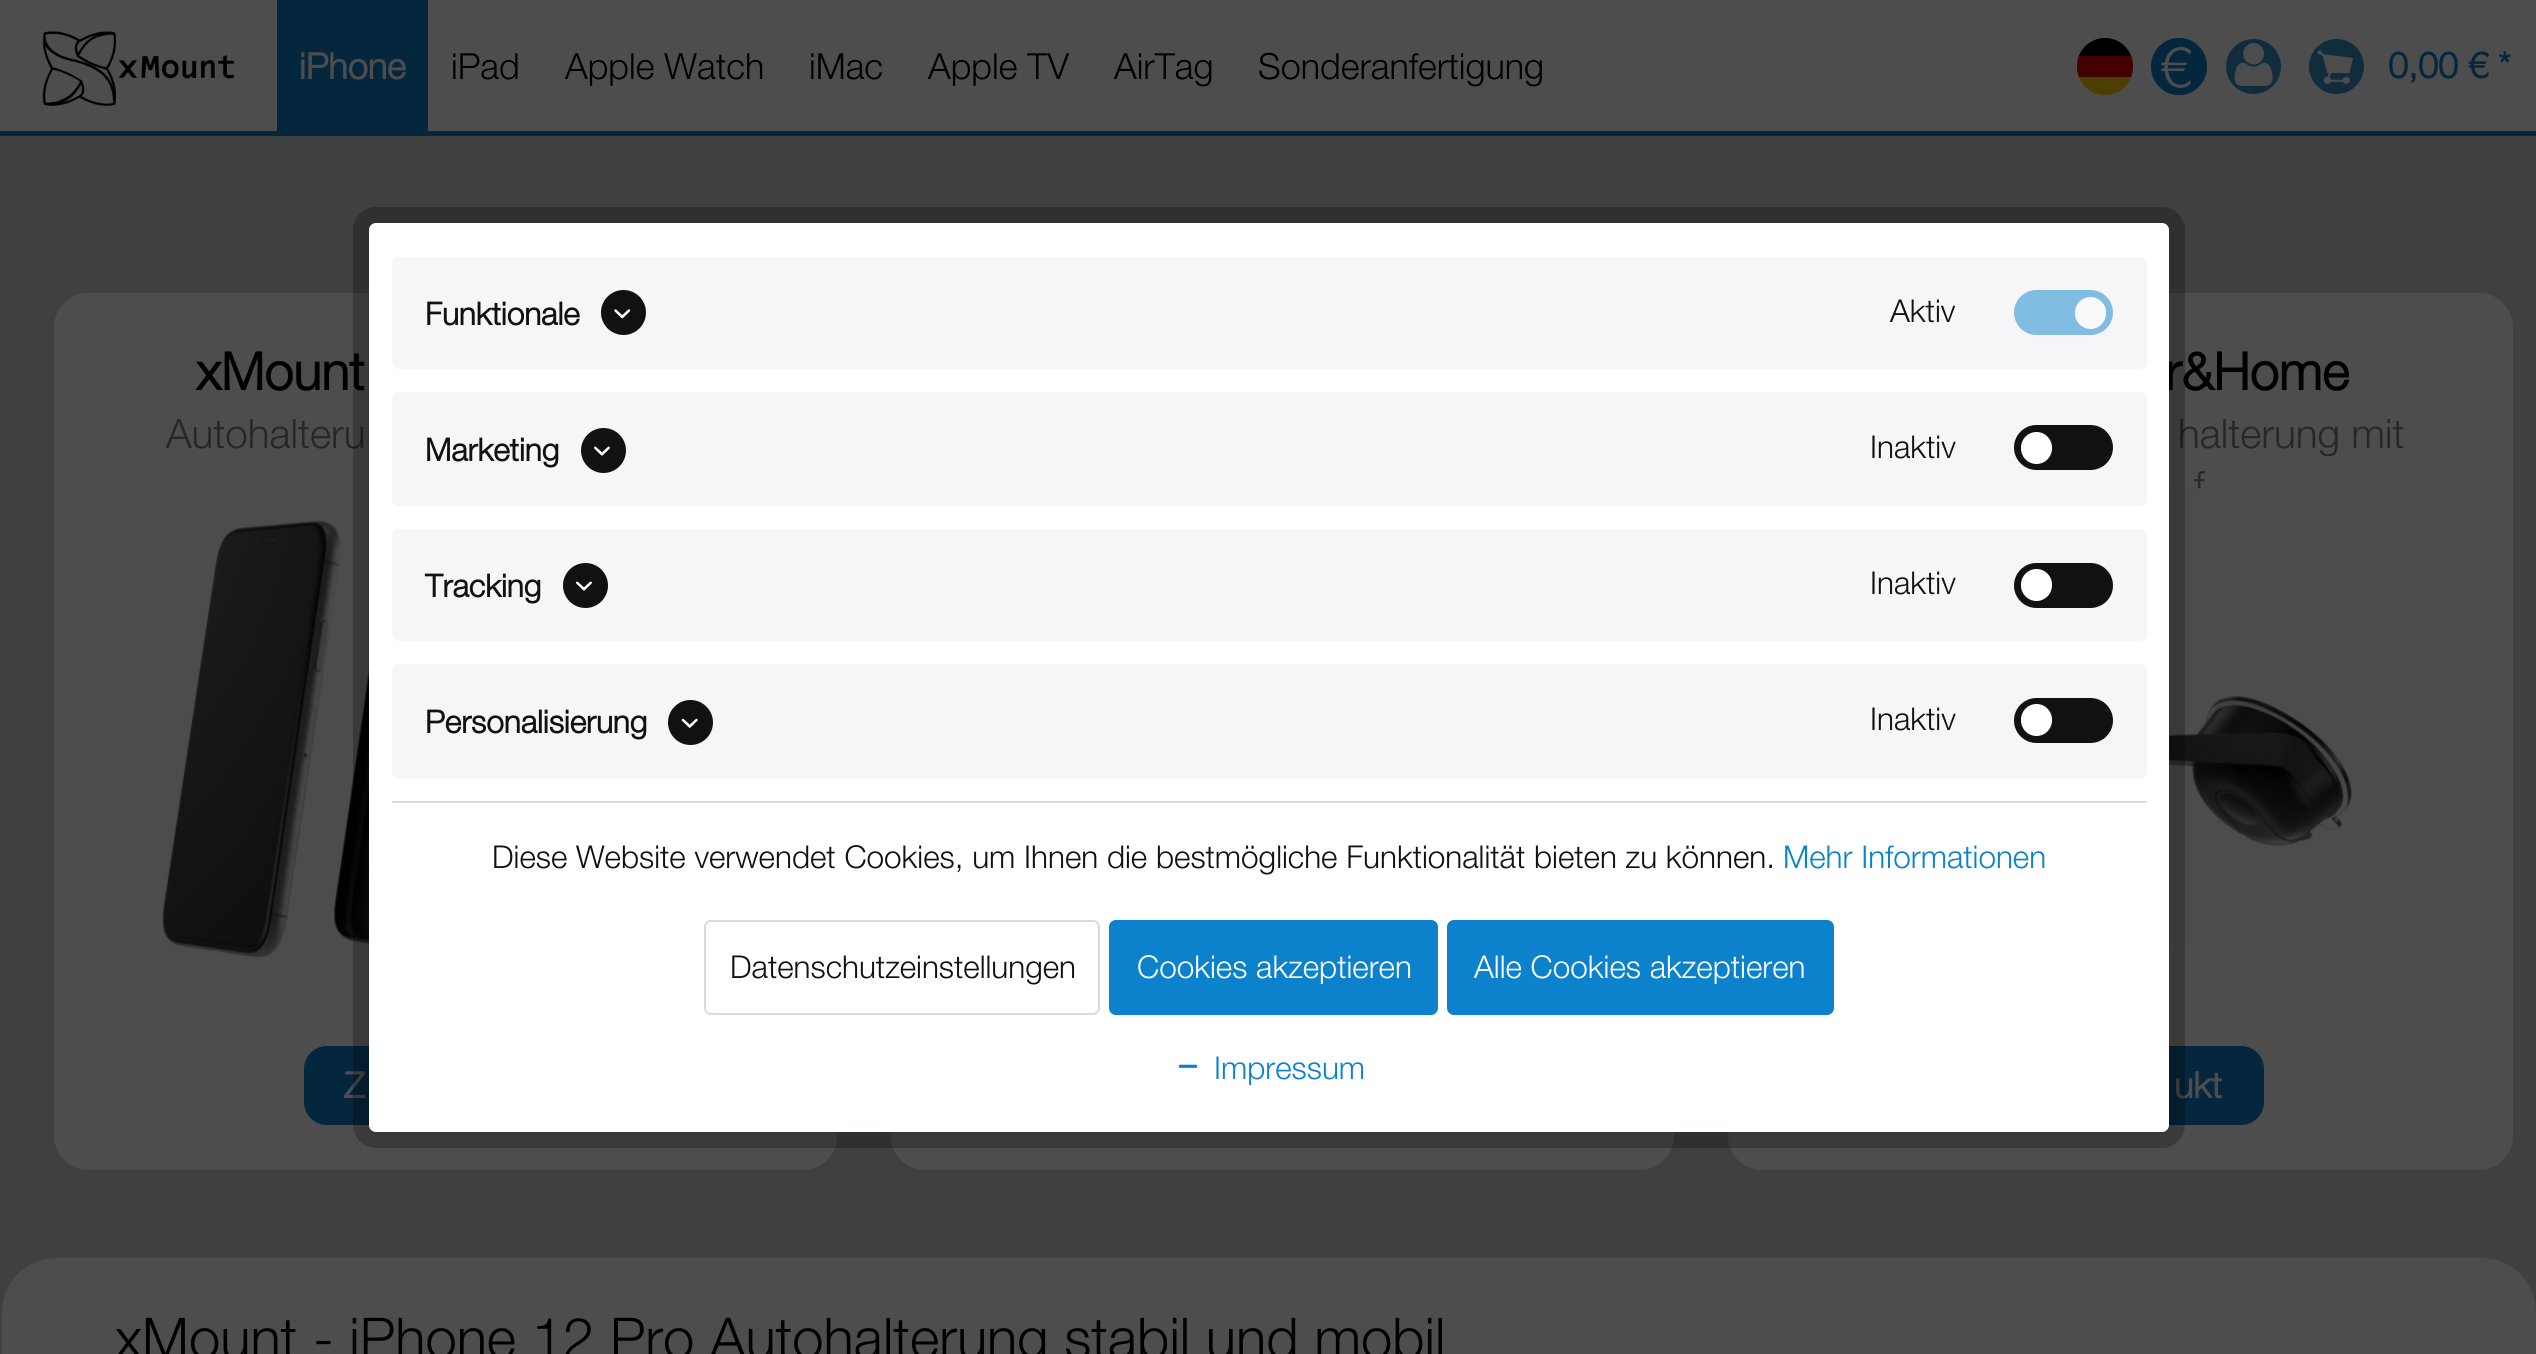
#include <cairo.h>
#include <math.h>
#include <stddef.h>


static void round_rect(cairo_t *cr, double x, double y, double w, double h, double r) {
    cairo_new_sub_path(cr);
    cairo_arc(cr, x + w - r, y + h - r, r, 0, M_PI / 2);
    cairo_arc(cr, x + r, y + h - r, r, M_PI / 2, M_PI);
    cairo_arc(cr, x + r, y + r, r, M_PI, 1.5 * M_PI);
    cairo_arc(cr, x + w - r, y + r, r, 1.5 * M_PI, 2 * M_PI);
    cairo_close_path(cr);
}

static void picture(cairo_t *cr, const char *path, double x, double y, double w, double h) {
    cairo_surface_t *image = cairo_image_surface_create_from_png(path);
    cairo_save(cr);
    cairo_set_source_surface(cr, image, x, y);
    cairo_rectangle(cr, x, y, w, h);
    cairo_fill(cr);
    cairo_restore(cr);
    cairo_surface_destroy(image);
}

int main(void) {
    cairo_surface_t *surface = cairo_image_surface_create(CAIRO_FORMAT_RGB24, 2536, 1354);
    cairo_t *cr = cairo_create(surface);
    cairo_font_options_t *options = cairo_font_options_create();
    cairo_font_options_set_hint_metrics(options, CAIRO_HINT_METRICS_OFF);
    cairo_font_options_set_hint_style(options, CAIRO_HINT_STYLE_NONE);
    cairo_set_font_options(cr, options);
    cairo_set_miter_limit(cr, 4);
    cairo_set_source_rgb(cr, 0.247, 0.251, 0.251);
    cairo_paint(cr);
    cairo_set_source_rgb(cr, 0.302, 0.302, 0.302);
    cairo_rectangle(cr, 0, 0, 2536, 131);
    cairo_fill(cr);
    cairo_set_source_rgb(cr, 0.016, 0.153, 0.243);
    cairo_rectangle(cr, 0, 131, 2536, 5);
    cairo_fill(cr);
    picture(cr, "img1.png", 42, 31, 192, 75);
    cairo_rectangle(cr, 277, 0, 151, 131);
    cairo_fill(cr);
    cairo_select_font_face(cr, "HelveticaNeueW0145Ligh", CAIRO_FONT_SLANT_NORMAL, CAIRO_FONT_WEIGHT_BOLD);
    cairo_set_font_size(cr, 36);
    cairo_set_source_rgb(cr, 0.302, 0.302, 0.302);
    cairo_move_to(cr, 299, 79);
    cairo_show_text(cr, "iPhone");
    cairo_select_font_face(cr, "HelveticaNeueW0145Ligh Light", CAIRO_FONT_SLANT_NORMAL, CAIRO_FONT_WEIGHT_NORMAL);
    cairo_set_source_rgb(cr, 0, 0, 0);
    cairo_move_to(cr, 451, 79);
    cairo_show_text(cr, "iPad");
    cairo_move_to(cr, 565, 79);
    cairo_show_text(cr, "Apple Watch");
    cairo_move_to(cr, 809, 79);
    cairo_show_text(cr, "iMac");
    cairo_move_to(cr, 928, 79);
    cairo_show_text(cr, "Apple TV");
    cairo_move_to(cr, 1114, 79);
    cairo_show_text(cr, "AirTag");
    cairo_move_to(cr, 1258, 79);
    cairo_show_text(cr, "Sonderanfertigung");
    cairo_save(cr);
    round_rect(cr, 2077, 38, 56, 57, 28);
    cairo_clip(cr);
    cairo_rectangle(cr, 2078, 38, 54, 18);
    cairo_fill(cr);
    cairo_set_source_rgb(cr, 0.259, 0, 0);
    cairo_rectangle(cr, 2077, 56, 56, 21);
    cairo_fill(cr);
    cairo_set_source_rgb(cr, 0.302, 0.243, 0);
    cairo_rectangle(cr, 2078, 77, 53, 18);
    cairo_fill(cr);
    cairo_restore(cr);
    round_rect(cr, 2152, 39, 54, 55, 27);
    cairo_set_source_rgb(cr, 0.016, 0.153, 0.243);
    cairo_stroke(cr);
    round_rect(cr, 2153, 38, 52, 57, 26);
    cairo_fill(cr);
    cairo_set_font_size(cr, 56.25);
    cairo_set_source_rgb(cr, 0.302, 0.302, 0.302);
    cairo_move_to(cr, 2160, 87);
    cairo_show_text(cr, "€");
    picture(cr, "img2.png", 2226, 39, 55, 55);
    picture(cr, "img3.png", 2309, 39, 55, 55);
    cairo_select_font_face(cr, "HelveticaNeueW0145Ligh", CAIRO_FONT_SLANT_NORMAL, CAIRO_FONT_WEIGHT_BOLD);
    cairo_set_font_size(cr, 36);
    cairo_set_source_rgb(cr, 0.016, 0.153, 0.243);
    cairo_move_to(cr, 2388, 78);
    cairo_show_text(cr, "0,00 € *");
    cairo_set_source_rgb(cr, 0.302, 0.302, 0.302);
    round_rect(cr, 54, 293, 783, 877, 34);
    cairo_fill(cr);
    cairo_set_font_size(cr, 52);
    cairo_set_source_rgb(cr, 0, 0, 0);
    cairo_move_to(cr, 196, 390);
    cairo_show_text(cr, "xMount");
    cairo_select_font_face(cr, "HelveticaNeueW0145Ligh Light", CAIRO_FONT_SLANT_NORMAL, CAIRO_FONT_WEIGHT_NORMAL);
    cairo_set_font_size(cr, 40.5);
    cairo_set_source_rgb(cr, 0.153, 0.153, 0.153);
    cairo_move_to(cr, 166, 448);
    cairo_show_text(cr, "Autohalteru");
    picture(cr, "img4.png", 162, 488, 207, 470);
    cairo_set_source_rgb(cr, 0.016, 0.153, 0.243);
    round_rect(cr, 304, 1046, 283, 79, 23);
    cairo_fill(cr);
    cairo_select_font_face(cr, "HelveticaNeueW0145Ligh", CAIRO_FONT_SLANT_NORMAL, CAIRO_FONT_WEIGHT_BOLD);
    cairo_set_font_size(cr, 36);
    cairo_set_source_rgb(cr, 0.302, 0.302, 0.302);
    cairo_move_to(cr, 344, 1098);
    cairo_show_text(cr, "Z");
    round_rect(cr, 891, 293, 783, 877, 34);
    cairo_fill(cr);
    round_rect(cr, 1728, 293, 785, 877, 34);
    cairo_fill(cr);
    cairo_set_font_size(cr, 52);
    cairo_set_source_rgb(cr, 0, 0, 0);
    cairo_move_to(cr, 2165, 390);
    cairo_show_text(cr, "r&Home");
    cairo_select_font_face(cr, "HelveticaNeueW0145Ligh Light", CAIRO_FONT_SLANT_NORMAL, CAIRO_FONT_WEIGHT_NORMAL);
    cairo_set_font_size(cr, 40.5);
    cairo_set_source_rgb(cr, 0.153, 0.153, 0.153);
    cairo_move_to(cr, 2178, 448);
    cairo_show_text(cr, "halterung mit");
    cairo_move_to(cr, 2194, 500);
    cairo_show_text(cr, "f");
    picture(cr, "img5.png", 2169, 488, 184, 458);
    cairo_set_source_rgb(cr, 0.016, 0.153, 0.243);
    round_rect(cr, 1980, 1046, 284, 79, 23);
    cairo_fill(cr);
    cairo_select_font_face(cr, "HelveticaNeueW0145Ligh", CAIRO_FONT_SLANT_NORMAL, CAIRO_FONT_WEIGHT_BOLD);
    cairo_set_font_size(cr, 36);
    cairo_set_source_rgb(cr, 0.302, 0.302, 0.302);
    cairo_move_to(cr, 2174, 1098);
    cairo_show_text(cr, "ukt");
    round_rect(cr, 2, 1258, 2534, 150, 54);
    cairo_fill(cr);
    round_rect(cr, 1, 1257, 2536, 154, 55);
    cairo_set_source_rgb(cr, 0.255, 0.255, 0.271);
    cairo_stroke(cr);
    cairo_select_font_face(cr, "HelveticaNeueW0145Ligh Light", CAIRO_FONT_SLANT_NORMAL, CAIRO_FONT_WEIGHT_NORMAL);
    cairo_set_font_size(cr, 56.25);
    cairo_set_source_rgb(cr, 0, 0, 0);
    cairo_move_to(cr, 115, 1358);
    cairo_show_text(cr, "xMount - iPhone 12 Pro Autohalterung stabil und mobil");
    round_rect(cr, 361, 215, 1816, 925, 15);
    cairo_set_source_rgba(cr, 0, 0, 0, 0.25);
    cairo_set_line_width(cr, 16);
    cairo_stroke(cr);
    cairo_set_source_rgb(cr, 1, 1, 1);
    round_rect(cr, 369, 223, 1800, 909, 7);
    cairo_fill(cr);
    cairo_set_source_rgb(cr, 0.855, 0.855, 0.898);
    cairo_rectangle(cr, 392, 801, 1755, 2);
    cairo_fill(cr);
    cairo_set_source_rgb(cr, 0.961, 0.961, 0.973);
    round_rect(cr, 392, 257, 1755, 112, 7);
    cairo_fill(cr);
    cairo_select_font_face(cr, "HelveticaNeueW0145Ligh", CAIRO_FONT_SLANT_NORMAL, CAIRO_FONT_WEIGHT_BOLD);
    cairo_set_font_size(cr, 31.5);
    cairo_set_source_rgb(cr, 0.067, 0.067, 0.067);
    cairo_move_to(cr, 425, 325);
    cairo_show_text(cr, "Funktionale");
    cairo_new_path(cr);
    cairo_arc(cr, 623.5, 312.5, 22.5, 0, 2 * M_PI);
    cairo_fill(cr);
    picture(cr, "img6.png", 614, 309, 17, 10);
    cairo_select_font_face(cr, "HelveticaNeueW0145Ligh Light", CAIRO_FONT_SLANT_NORMAL, CAIRO_FONT_WEIGHT_NORMAL);
    cairo_move_to(cr, 1890, 322);
    cairo_show_text(cr, "Aktiv");
    cairo_set_source_rgb(cr, 0.506, 0.737, 0.89);
    round_rect(cr, 2014, 290, 99, 45, 22.5);
    cairo_fill(cr);
    cairo_set_source_rgb(cr, 0.98, 0.98, 0.988);
    round_rect(cr, 2075, 297, 31, 32, 15.5);
    cairo_fill(cr);
    cairo_set_source_rgb(cr, 0.961, 0.961, 0.973);
    round_rect(cr, 392, 392, 1755, 114, 7);
    cairo_fill(cr);
    cairo_select_font_face(cr, "HelveticaNeueW0145Ligh", CAIRO_FONT_SLANT_NORMAL, CAIRO_FONT_WEIGHT_BOLD);
    cairo_set_source_rgb(cr, 0.067, 0.067, 0.067);
    cairo_move_to(cr, 425, 461);
    cairo_show_text(cr, "Marketing");
    cairo_new_path(cr);
    cairo_arc(cr, 603.5, 450.5, 22.5, 0, 2 * M_PI);
    cairo_fill(cr);
    picture(cr, "img7.png", 594, 446, 16, 10);
    cairo_select_font_face(cr, "HelveticaNeueW0145Ligh Light", CAIRO_FONT_SLANT_NORMAL, CAIRO_FONT_WEIGHT_NORMAL);
    cairo_move_to(cr, 1870, 458);
    cairo_show_text(cr, "Inaktiv");
    round_rect(cr, 2014, 425, 99, 45, 22.5);
    cairo_fill(cr);
    cairo_set_source_rgb(cr, 1, 1, 1);
    round_rect(cr, 2021, 432, 31, 32, 15.5);
    cairo_fill(cr);
    cairo_set_source_rgb(cr, 0.961, 0.961, 0.973);
    round_rect(cr, 392, 529, 1755, 112, 7);
    cairo_fill(cr);
    cairo_select_font_face(cr, "HelveticaNeueW0145Ligh", CAIRO_FONT_SLANT_NORMAL, CAIRO_FONT_WEIGHT_BOLD);
    cairo_set_source_rgb(cr, 0.067, 0.067, 0.067);
    cairo_move_to(cr, 425, 597);
    cairo_show_text(cr, "Tracking");
    cairo_new_path(cr);
    cairo_arc(cr, 585.5, 585.5, 22.5, 0, 2 * M_PI);
    cairo_fill(cr);
    picture(cr, "img7.png", 576, 581, 16, 10);
    cairo_select_font_face(cr, "HelveticaNeueW0145Ligh Light", CAIRO_FONT_SLANT_NORMAL, CAIRO_FONT_WEIGHT_NORMAL);
    cairo_move_to(cr, 1870, 594);
    cairo_show_text(cr, "Inaktiv");
    round_rect(cr, 2014, 563, 99, 45, 22.5);
    cairo_fill(cr);
    cairo_set_source_rgb(cr, 1, 1, 1);
    round_rect(cr, 2021, 569, 31, 32, 15.5);
    cairo_fill(cr);
    cairo_set_source_rgb(cr, 0.961, 0.961, 0.973);
    round_rect(cr, 392, 664, 1755, 115, 7);
    cairo_fill(cr);
    cairo_select_font_face(cr, "HelveticaNeueW0145Ligh", CAIRO_FONT_SLANT_NORMAL, CAIRO_FONT_WEIGHT_BOLD);
    cairo_set_source_rgb(cr, 0.067, 0.067, 0.067);
    cairo_move_to(cr, 425, 733);
    cairo_show_text(cr, "Personalisierung");
    cairo_new_path(cr);
    cairo_arc(cr, 690.5, 722.5, 22.5, 0, 2 * M_PI);
    cairo_fill(cr);
    picture(cr, "img8.png", 681, 718, 17, 10);
    cairo_select_font_face(cr, "HelveticaNeueW0145Ligh Light", CAIRO_FONT_SLANT_NORMAL, CAIRO_FONT_WEIGHT_NORMAL);
    cairo_move_to(cr, 1870, 730);
    cairo_show_text(cr, "Inaktiv");
    round_rect(cr, 2014, 698, 99, 45, 22.5);
    cairo_fill(cr);
    cairo_set_source_rgb(cr, 1, 1, 1);
    round_rect(cr, 2021, 704, 31, 32, 15.5);
    cairo_fill(cr);
    cairo_set_source_rgb(cr, 0.067, 0.067, 0.067);
    cairo_move_to(cr, 492, 868);
    cairo_show_text(cr, "Diese Website verwendet Cookies, um Ihnen die bestmögliche Funktionalität bieten zu können.");
    cairo_set_source_rgb(cr, 0.047, 0.51, 0.804);
    cairo_move_to(cr, 1783, 868);
    cairo_show_text(cr, "Mehr Informationen");
    round_rect(cr, 705, 921, 394, 93, 6);
    cairo_set_source_rgb(cr, 0.855, 0.855, 0.898);
    cairo_set_line_width(cr, 2);
    cairo_stroke(cr);
    cairo_set_source_rgb(cr, 0.067, 0.067, 0.067);
    cairo_move_to(cr, 730, 978);
    cairo_show_text(cr, "Datenschutzeinstellungen");
    cairo_set_source_rgb(cr, 0.047, 0.51, 0.804);
    round_rect(cr, 1109, 920, 329, 95, 7);
    cairo_fill(cr);
    cairo_set_source_rgb(cr, 1, 1, 1);
    cairo_move_to(cr, 1137, 978);
    cairo_show_text(cr, "Cookies akzeptieren");
    cairo_set_source_rgb(cr, 0.047, 0.51, 0.804);
    round_rect(cr, 1447, 920, 387, 95, 7);
    cairo_fill(cr);
    cairo_set_source_rgb(cr, 1, 1, 1);
    cairo_move_to(cr, 1474, 978);
    cairo_show_text(cr, "Alle Cookies akzeptieren");
    picture(cr, "img9.png", 1178, 1064, 20, 4);
    cairo_set_source_rgb(cr, 0.047, 0.51, 0.804);
    cairo_move_to(cr, 1214, 1079);
    cairo_show_text(cr, "Impressum");
    cairo_surface_write_to_png(surface, "page.png");
    cairo_font_options_destroy(options);
    cairo_destroy(cr);
    cairo_surface_destroy(surface);
    return 0;
}
